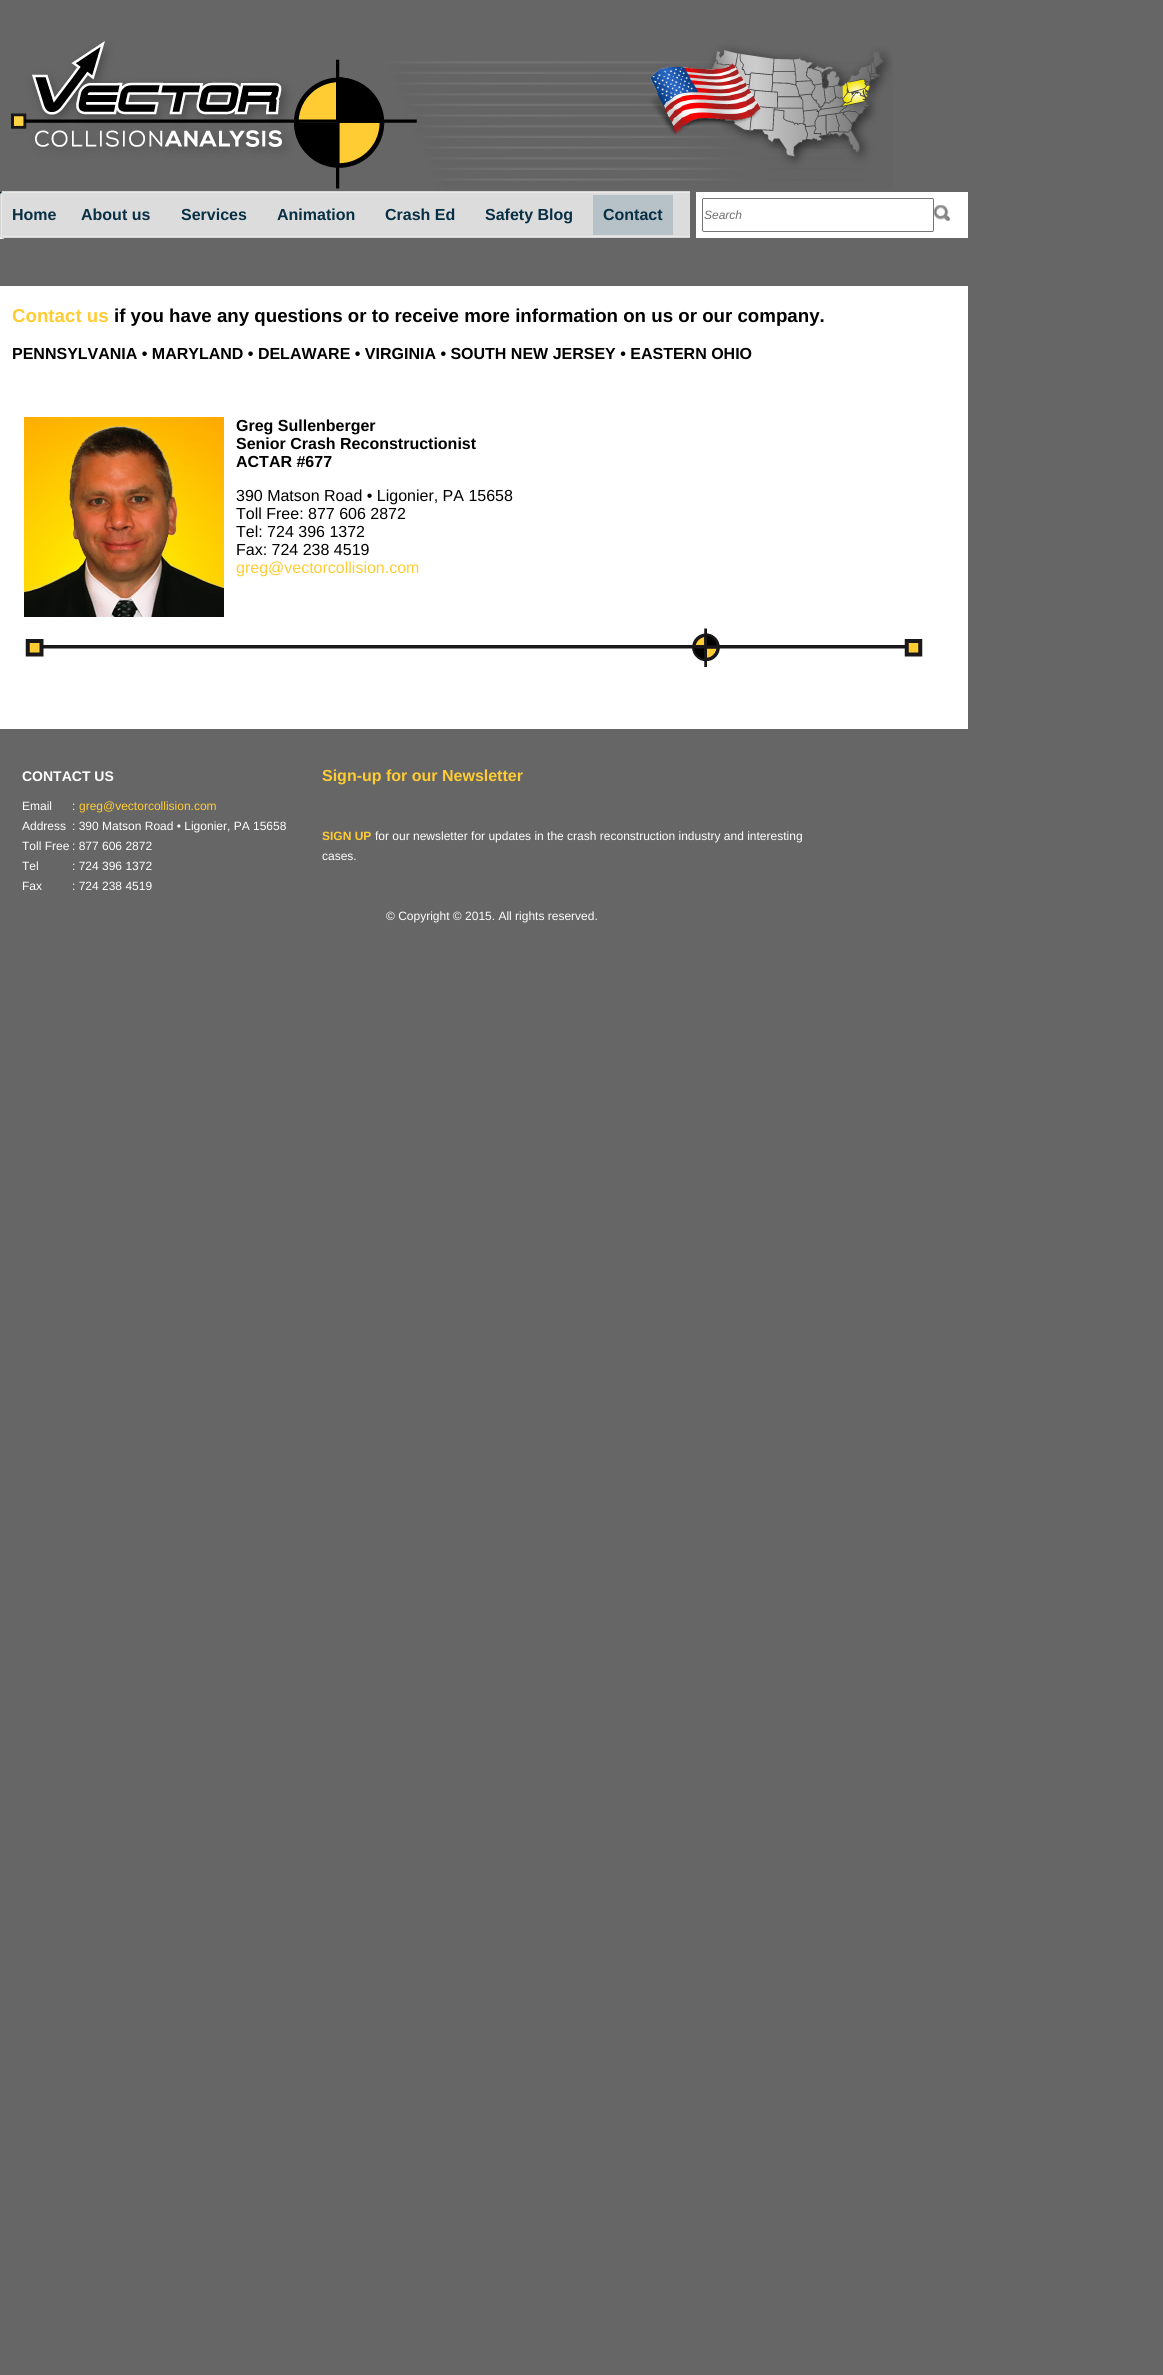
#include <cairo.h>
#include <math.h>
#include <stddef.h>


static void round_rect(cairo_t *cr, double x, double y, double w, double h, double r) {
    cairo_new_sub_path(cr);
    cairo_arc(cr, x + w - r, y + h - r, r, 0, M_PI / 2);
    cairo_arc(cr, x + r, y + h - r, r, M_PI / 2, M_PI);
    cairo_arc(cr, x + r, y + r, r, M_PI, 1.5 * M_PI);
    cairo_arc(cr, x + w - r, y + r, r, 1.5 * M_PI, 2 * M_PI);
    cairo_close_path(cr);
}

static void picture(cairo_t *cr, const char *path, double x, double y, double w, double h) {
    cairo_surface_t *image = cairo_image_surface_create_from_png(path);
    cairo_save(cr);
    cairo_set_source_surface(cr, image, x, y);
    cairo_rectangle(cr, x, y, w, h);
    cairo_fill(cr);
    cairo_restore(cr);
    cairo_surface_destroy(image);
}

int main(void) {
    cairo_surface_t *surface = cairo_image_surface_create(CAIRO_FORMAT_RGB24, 1163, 2375);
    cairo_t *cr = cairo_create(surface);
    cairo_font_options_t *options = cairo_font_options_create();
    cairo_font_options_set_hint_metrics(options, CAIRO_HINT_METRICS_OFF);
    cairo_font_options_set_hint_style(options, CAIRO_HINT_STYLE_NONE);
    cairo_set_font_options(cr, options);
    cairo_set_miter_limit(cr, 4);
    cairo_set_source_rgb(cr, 0.4, 0.4, 0.4);
    cairo_paint(cr);
    picture(cr, "img1.png", 11, 41, 882, 148);
    picture(cr, "img2.png", 0, 192, 4, 47);
    picture(cr, "img3.png", 2, 191, 688, 47);
    cairo_select_font_face(cr, "Liberation Sans", CAIRO_FONT_SLANT_NORMAL, CAIRO_FONT_WEIGHT_BOLD);
    cairo_set_font_size(cr, 16);
    cairo_set_source_rgb(cr, 0.035, 0.184, 0.267);
    cairo_move_to(cr, 12, 220);
    cairo_show_text(cr, "Home");
    cairo_move_to(cr, 81, 220);
    cairo_show_text(cr, "About us");
    cairo_move_to(cr, 181, 220);
    cairo_show_text(cr, "Services");
    cairo_move_to(cr, 277, 220);
    cairo_show_text(cr, "Animation");
    cairo_move_to(cr, 385, 220);
    cairo_show_text(cr, "Crash Ed");
    cairo_move_to(cr, 485, 220);
    cairo_show_text(cr, "Safety Blog");
    cairo_set_source_rgb(cr, 0.718, 0.761, 0.784);
    cairo_rectangle(cr, 593, 195, 80, 40);
    cairo_fill(cr);
    cairo_set_source_rgb(cr, 0.035, 0.184, 0.267);
    cairo_move_to(cr, 603, 220);
    cairo_show_text(cr, "Contact");
    cairo_set_source_rgb(cr, 1, 1, 1);
    cairo_rectangle(cr, 696, 192, 272, 46);
    cairo_fill(cr);
    round_rect(cr, 702.5, 198.5, 231, 33, 1.5);
    cairo_set_source_rgb(cr, 0.463, 0.463, 0.463);
    cairo_set_line_width(cr, 1);
    cairo_stroke(cr);
    cairo_select_font_face(cr, "Liberation Sans", CAIRO_FONT_SLANT_ITALIC, CAIRO_FONT_WEIGHT_NORMAL);
    cairo_set_font_size(cr, 12);
    cairo_set_source_rgb(cr, 0.431, 0.431, 0.431);
    cairo_move_to(cr, 704, 219);
    cairo_show_text(cr, "Search");
    picture(cr, "img4.png", 934, 205, 16, 16);
    cairo_set_source_rgb(cr, 1, 1, 1);
    cairo_rectangle(cr, 0, 286, 968, 443);
    cairo_fill(cr);
    cairo_select_font_face(cr, "Liberation Sans", CAIRO_FONT_SLANT_NORMAL, CAIRO_FONT_WEIGHT_BOLD);
    cairo_set_font_size(cr, 18.7);
    cairo_set_source_rgb(cr, 1, 0.8, 0.2);
    cairo_move_to(cr, 12, 322);
    cairo_show_text(cr, "Contact us");
    cairo_set_source_rgb(cr, 0, 0, 0);
    cairo_move_to(cr, 114, 322);
    cairo_show_text(cr, "if you have any questions or to receive more information on us or our company.");
    cairo_set_font_size(cr, 16);
    cairo_move_to(cr, 12, 359);
    cairo_show_text(cr, "PENNSYLVANIA • MARYLAND • DELAWARE • VIRGINIA • SOUTH NEW JERSEY • EASTERN OHIO");
    picture(cr, "img5.png", 24, 417, 200, 200);
    cairo_move_to(cr, 236, 431);
    cairo_show_text(cr, "Greg Sullenberger");
    cairo_move_to(cr, 236, 449);
    cairo_show_text(cr, "Senior Crash Reconstructionist");
    cairo_move_to(cr, 236, 467);
    cairo_show_text(cr, "ACTAR #677");
    cairo_select_font_face(cr, "Liberation Sans", CAIRO_FONT_SLANT_NORMAL, CAIRO_FONT_WEIGHT_NORMAL);
    cairo_move_to(cr, 236, 501);
    cairo_show_text(cr, "390 Matson Road • Ligonier, PA 15658");
    cairo_move_to(cr, 236, 519);
    cairo_show_text(cr, "Toll Free: 877 606 2872");
    cairo_move_to(cr, 236, 537);
    cairo_show_text(cr, "Tel: 724 396 1372");
    cairo_move_to(cr, 236, 555);
    cairo_show_text(cr, "Fax: 724 238 4519");
    cairo_set_source_rgb(cr, 1, 0.8, 0.2);
    cairo_move_to(cr, 236, 573);
    cairo_show_text(cr, "greg@vectorcollision.com");
    picture(cr, "img6.png", 25, 628, 898, 39);
    cairo_select_font_face(cr, "Liberation Sans", CAIRO_FONT_SLANT_NORMAL, CAIRO_FONT_WEIGHT_BOLD);
    cairo_set_font_size(cr, 14);
    cairo_set_source_rgb(cr, 1, 1, 1);
    cairo_move_to(cr, 22, 781);
    cairo_show_text(cr, "CONTACT US");
    cairo_select_font_face(cr, "Liberation Sans", CAIRO_FONT_SLANT_NORMAL, CAIRO_FONT_WEIGHT_NORMAL);
    cairo_set_font_size(cr, 12);
    cairo_move_to(cr, 22, 810);
    cairo_show_text(cr, "Email");
    cairo_move_to(cr, 72, 810);
    cairo_show_text(cr, ":");
    cairo_set_source_rgb(cr, 1, 0.8, 0.2);
    cairo_move_to(cr, 79, 810);
    cairo_show_text(cr, "greg@vectorcollision.com");
    cairo_set_source_rgb(cr, 1, 1, 1);
    cairo_move_to(cr, 22, 830);
    cairo_show_text(cr, "Address");
    cairo_move_to(cr, 72, 830);
    cairo_show_text(cr, ": 390 Matson Road • Ligonier, PA 15658");
    cairo_move_to(cr, 22, 850);
    cairo_show_text(cr, "Toll Free");
    cairo_move_to(cr, 72, 850);
    cairo_show_text(cr, ": 877 606 2872");
    cairo_move_to(cr, 22, 870);
    cairo_show_text(cr, "Tel");
    cairo_move_to(cr, 72, 870);
    cairo_show_text(cr, ": 724 396 1372");
    cairo_move_to(cr, 22, 890);
    cairo_show_text(cr, "Fax");
    cairo_move_to(cr, 72, 890);
    cairo_show_text(cr, ": 724 238 4519");
    cairo_select_font_face(cr, "Liberation Sans", CAIRO_FONT_SLANT_NORMAL, CAIRO_FONT_WEIGHT_BOLD);
    cairo_set_font_size(cr, 16);
    cairo_set_source_rgb(cr, 1, 0.8, 0.2);
    cairo_move_to(cr, 322, 781);
    cairo_show_text(cr, "Sign-up for our Newsletter");
    cairo_set_font_size(cr, 12);
    cairo_move_to(cr, 322, 840);
    cairo_show_text(cr, "SIGN UP");
    cairo_select_font_face(cr, "Liberation Sans", CAIRO_FONT_SLANT_NORMAL, CAIRO_FONT_WEIGHT_NORMAL);
    cairo_set_source_rgb(cr, 1, 1, 1);
    cairo_move_to(cr, 375, 840);
    cairo_show_text(cr, "for our newsletter for updates in the crash reconstruction industry and interesting");
    cairo_move_to(cr, 322, 860);
    cairo_show_text(cr, "cases.");
    cairo_move_to(cr, 386, 920);
    cairo_show_text(cr, "© Copyright © 2015. All rights reserved.");
    cairo_surface_write_to_png(surface, "page.png");
    cairo_font_options_destroy(options);
    cairo_destroy(cr);
    cairo_surface_destroy(surface);
    return 0;
}
